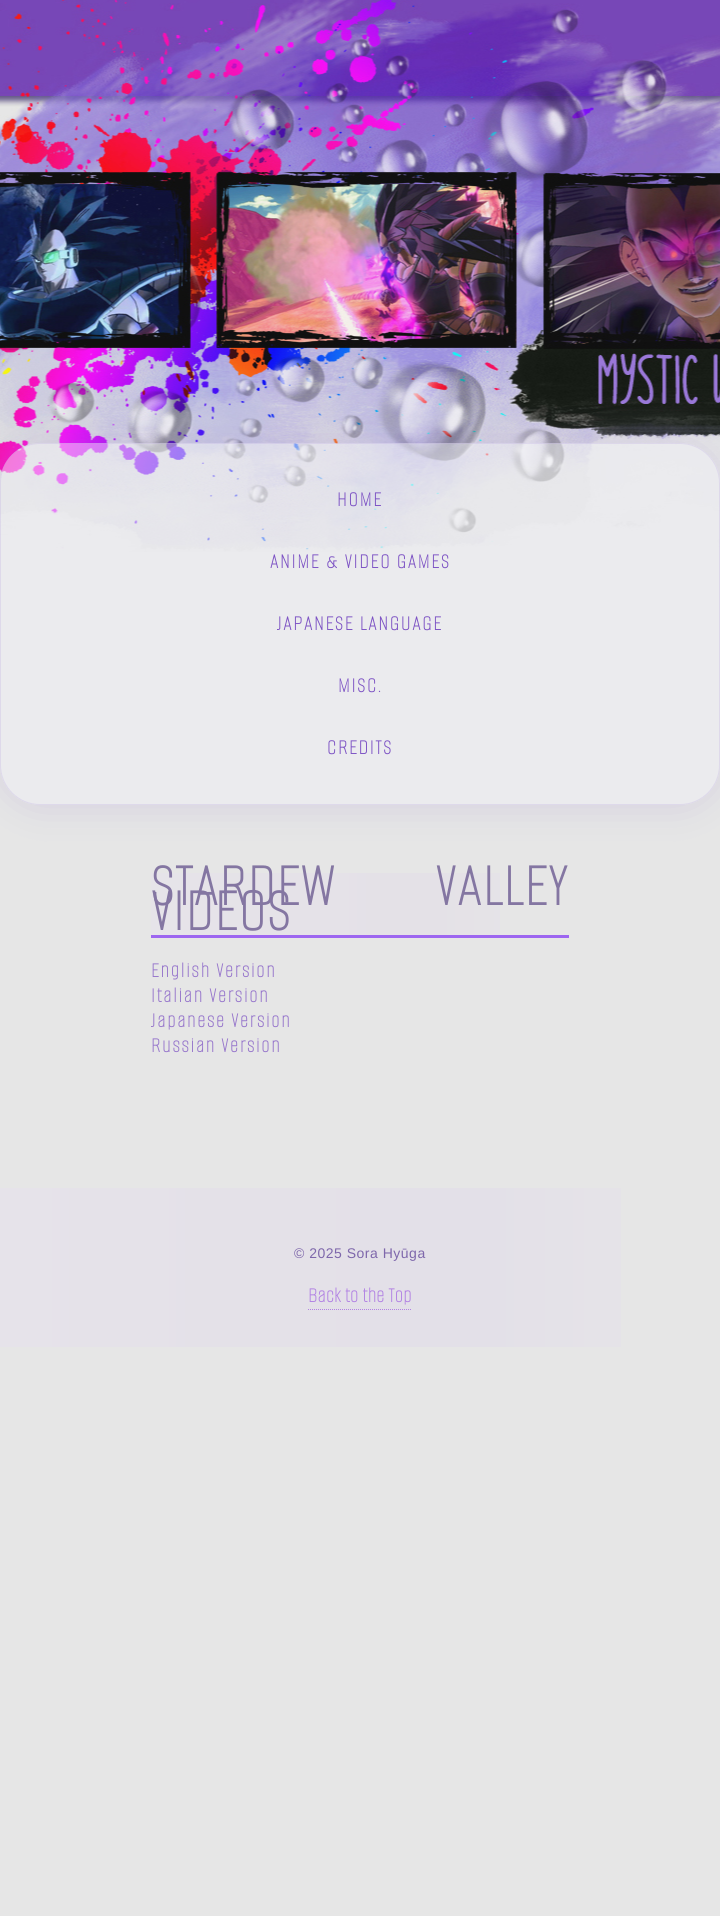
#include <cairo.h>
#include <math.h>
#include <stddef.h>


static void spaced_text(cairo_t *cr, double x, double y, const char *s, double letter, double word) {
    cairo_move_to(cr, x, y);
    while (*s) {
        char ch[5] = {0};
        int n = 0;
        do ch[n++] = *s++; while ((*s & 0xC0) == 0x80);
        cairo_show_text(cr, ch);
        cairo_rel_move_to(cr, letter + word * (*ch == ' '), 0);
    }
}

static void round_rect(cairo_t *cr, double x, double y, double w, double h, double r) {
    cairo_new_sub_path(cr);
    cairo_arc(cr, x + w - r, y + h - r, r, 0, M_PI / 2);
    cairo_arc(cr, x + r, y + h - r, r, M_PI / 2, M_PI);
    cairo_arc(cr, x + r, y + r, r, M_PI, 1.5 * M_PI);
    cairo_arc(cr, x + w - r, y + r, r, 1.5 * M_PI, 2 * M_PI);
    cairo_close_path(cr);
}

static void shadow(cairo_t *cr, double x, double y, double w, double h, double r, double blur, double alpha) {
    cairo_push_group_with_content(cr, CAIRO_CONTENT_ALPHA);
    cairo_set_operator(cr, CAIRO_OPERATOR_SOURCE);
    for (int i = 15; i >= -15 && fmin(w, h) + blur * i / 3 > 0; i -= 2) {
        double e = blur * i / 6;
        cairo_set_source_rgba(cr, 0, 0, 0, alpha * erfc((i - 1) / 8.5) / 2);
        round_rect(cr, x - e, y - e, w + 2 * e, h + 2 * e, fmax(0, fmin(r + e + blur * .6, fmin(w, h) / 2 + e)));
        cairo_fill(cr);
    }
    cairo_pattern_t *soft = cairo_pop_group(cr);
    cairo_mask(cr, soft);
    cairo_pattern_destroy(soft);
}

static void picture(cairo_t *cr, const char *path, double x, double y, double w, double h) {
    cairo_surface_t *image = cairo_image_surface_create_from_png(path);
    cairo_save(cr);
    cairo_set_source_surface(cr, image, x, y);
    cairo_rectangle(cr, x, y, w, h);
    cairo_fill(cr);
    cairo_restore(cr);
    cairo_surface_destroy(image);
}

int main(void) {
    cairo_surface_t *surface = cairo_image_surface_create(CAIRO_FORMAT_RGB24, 720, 1916);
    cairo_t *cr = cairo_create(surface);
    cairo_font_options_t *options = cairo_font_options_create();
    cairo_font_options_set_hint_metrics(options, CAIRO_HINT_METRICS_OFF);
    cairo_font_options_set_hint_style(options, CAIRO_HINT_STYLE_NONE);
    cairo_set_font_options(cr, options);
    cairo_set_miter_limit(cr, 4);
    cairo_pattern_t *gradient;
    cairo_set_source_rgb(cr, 0.902, 0.902, 0.902);
    cairo_paint(cr);
    picture(cr, "img1.png", 0, 0, 720, 552);
    cairo_save(cr);
    cairo_set_fill_rule(cr, CAIRO_FILL_RULE_EVEN_ODD);
    cairo_new_path(cr);
    cairo_move_to(cr, 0, 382);
    cairo_line_to(cr, 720, 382);
    cairo_line_to(cr, 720, 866);
    cairo_line_to(cr, 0, 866);
    cairo_close_path(cr);
    cairo_move_to(cr, 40, 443);
    cairo_line_to(cr, 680, 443);
    cairo_curve_to(cr, 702, 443, 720, 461, 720, 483);
    cairo_line_to(cr, 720, 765);
    cairo_curve_to(cr, 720, 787, 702, 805, 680, 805);
    cairo_line_to(cr, 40, 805);
    cairo_curve_to(cr, 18, 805, 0, 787, 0, 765);
    cairo_line_to(cr, 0, 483);
    cairo_curve_to(cr, 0, 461, 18, 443, 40, 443);
    cairo_close_path(cr);
    cairo_clip(cr);
    cairo_set_source_rgb(cr, 0.588, 0.51, 0.784);
    shadow(cr, 0, 443, 720, 362, 40, 20, 0.24);
    cairo_restore(cr);
    cairo_set_source_rgba(cr, 0.941, 0.941, 0.961, 0.48);
    round_rect(cr, 0, 443, 720, 362, 40);
    cairo_fill(cr);
    round_rect(cr, 0.5, 443.5, 719, 361, 39.5);
    cairo_set_source_rgba(cr, 0.706, 0.627, 0.863, 0.24);
    cairo_set_line_width(cr, 1);
    cairo_stroke(cr);
    cairo_select_font_face(cr, "Alumni Sans Pinstripe", CAIRO_FONT_SLANT_NORMAL, CAIRO_FONT_WEIGHT_BOLD);
    cairo_set_font_size(cr, 22);
    cairo_set_source_rgb(cr, 0.49, 0.325, 0.769);
    spaced_text(cr, 337, 506, "HOME", 2, 0);
    spaced_text(cr, 270, 568, "ANIME & VIDEO GAMES", 2, 0);
    spaced_text(cr, 277, 630, "JAPANESE LANGUAGE", 2, 0);
    spaced_text(cr, 338, 692, "MISC.", 2, 0);
    spaced_text(cr, 327, 754, "CREDITS", 2, 0);
    gradient = cairo_pattern_create_linear(151, 904, 569, 904);
    cairo_pattern_add_color_stop_rgba(gradient, 0, 0.902, 0.894, 0.914, 1);
    cairo_pattern_add_color_stop_rgba(gradient, 0.33, 0.898, 0.886, 0.91, 1);
    cairo_pattern_add_color_stop_rgba(gradient, 0.67, 0.894, 0.882, 0.906, 1);
    cairo_pattern_add_color_stop_rgba(gradient, 1, 0.906, 0.902, 0.91, 1);
    cairo_set_source(cr, gradient);
    cairo_pattern_destroy(gradient);
    cairo_rectangle(cr, 151, 873, 349, 62);
    cairo_fill(cr);
    cairo_set_source_rgb(cr, 0.616, 0.4, 0.941);
    cairo_rectangle(cr, 151, 935, 418, 3);
    cairo_fill(cr);
    cairo_set_font_size(cr, 64);
    cairo_set_source_rgb(cr, 0.518, 0.463, 0.635);
    spaced_text(cr, 151, 905, "STARDEW VALLEY", 2, 88);
    spaced_text(cr, 151, 930, "VIDEOS", 2, 0);
    cairo_set_font_size(cr, 22);
    cairo_set_source_rgb(cr, 0.596, 0.471, 0.8);
    spaced_text(cr, 151, 977, "English Version", 2, 0);
    spaced_text(cr, 151, 1002, "Italian Version", 2, 0);
    spaced_text(cr, 151, 1027, "Japanese Version", 2, 0);
    spaced_text(cr, 151, 1052, "Russian Version", 2, 0);
    gradient = cairo_pattern_create_linear(0, 1268, 720, 1268);
    cairo_pattern_add_color_stop_rgba(gradient, 0, 0.902, 0.89, 0.918, 1);
    cairo_pattern_add_color_stop_rgba(gradient, 0.33, 0.894, 0.882, 0.91, 1);
    cairo_pattern_add_color_stop_rgba(gradient, 0.67, 0.89, 0.878, 0.91, 1);
    cairo_pattern_add_color_stop_rgba(gradient, 1, 0.906, 0.902, 0.91, 1);
    cairo_set_source(cr, gradient);
    cairo_pattern_destroy(gradient);
    cairo_rectangle(cr, 0, 1188, 621, 159);
    cairo_fill(cr);
    cairo_select_font_face(cr, "Liberation Sans", CAIRO_FONT_SLANT_NORMAL, CAIRO_FONT_WEIGHT_NORMAL);
    cairo_set_font_size(cr, 14);
    cairo_set_source_rgb(cr, 0.494, 0.404, 0.671);
    spaced_text(cr, 294, 1258, "© 2025 Sora Hyūga", 0.5, 0);
    cairo_select_font_face(cr, "Alumni Sans Pinstripe", CAIRO_FONT_SLANT_NORMAL, CAIRO_FONT_WEIGHT_BOLD);
    cairo_set_font_size(cr, 22);
    cairo_set_source_rgb(cr, 0.698, 0.514, 0.89);
    spaced_text(cr, 308, 1302, "Back to the Top", 0.5, 0);
    cairo_new_path(cr);
    cairo_move_to(cr, 308, 1309.5);
    cairo_line_to(cr, 412, 1309.5);
    cairo_set_dash(cr, (double[]){1, 1}, 2, 0);
    cairo_stroke(cr);
    cairo_surface_write_to_png(surface, "page.png");
    cairo_font_options_destroy(options);
    cairo_destroy(cr);
    cairo_surface_destroy(surface);
    return 0;
}
